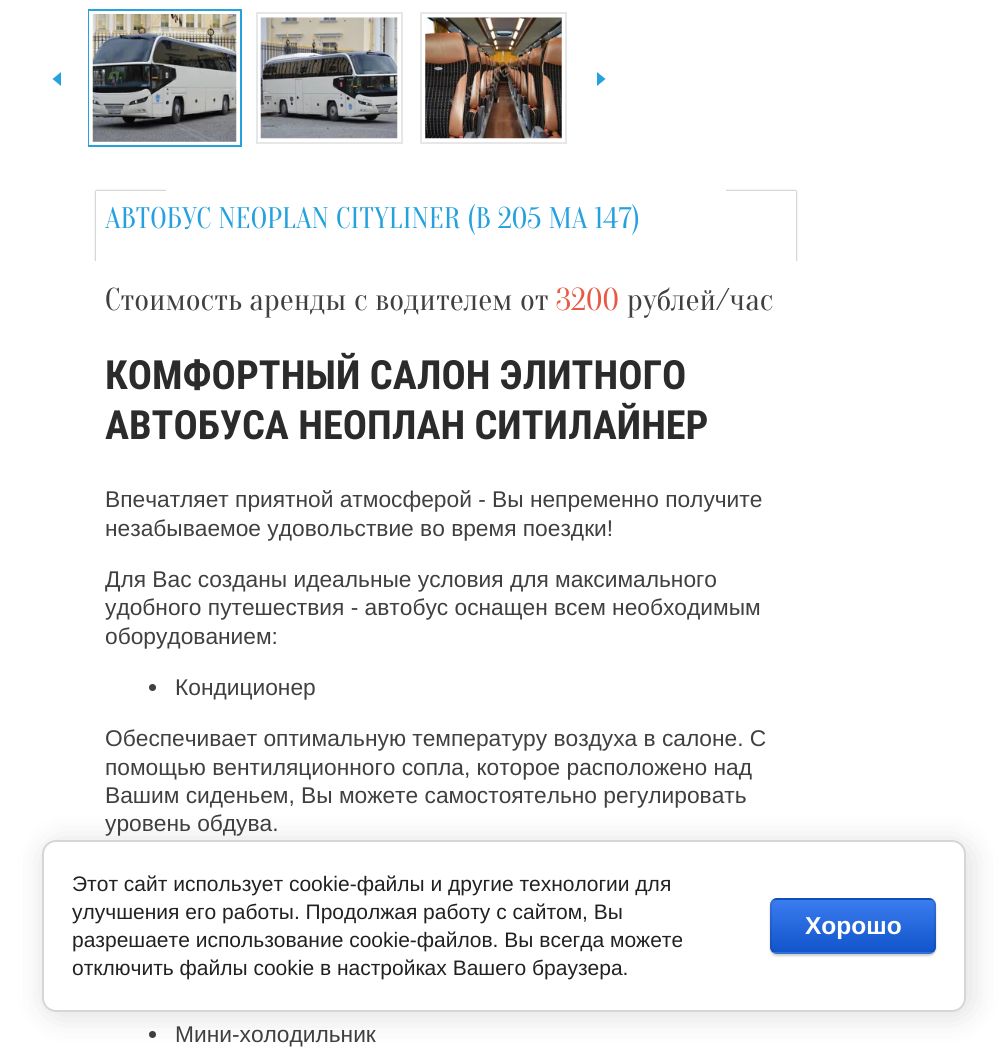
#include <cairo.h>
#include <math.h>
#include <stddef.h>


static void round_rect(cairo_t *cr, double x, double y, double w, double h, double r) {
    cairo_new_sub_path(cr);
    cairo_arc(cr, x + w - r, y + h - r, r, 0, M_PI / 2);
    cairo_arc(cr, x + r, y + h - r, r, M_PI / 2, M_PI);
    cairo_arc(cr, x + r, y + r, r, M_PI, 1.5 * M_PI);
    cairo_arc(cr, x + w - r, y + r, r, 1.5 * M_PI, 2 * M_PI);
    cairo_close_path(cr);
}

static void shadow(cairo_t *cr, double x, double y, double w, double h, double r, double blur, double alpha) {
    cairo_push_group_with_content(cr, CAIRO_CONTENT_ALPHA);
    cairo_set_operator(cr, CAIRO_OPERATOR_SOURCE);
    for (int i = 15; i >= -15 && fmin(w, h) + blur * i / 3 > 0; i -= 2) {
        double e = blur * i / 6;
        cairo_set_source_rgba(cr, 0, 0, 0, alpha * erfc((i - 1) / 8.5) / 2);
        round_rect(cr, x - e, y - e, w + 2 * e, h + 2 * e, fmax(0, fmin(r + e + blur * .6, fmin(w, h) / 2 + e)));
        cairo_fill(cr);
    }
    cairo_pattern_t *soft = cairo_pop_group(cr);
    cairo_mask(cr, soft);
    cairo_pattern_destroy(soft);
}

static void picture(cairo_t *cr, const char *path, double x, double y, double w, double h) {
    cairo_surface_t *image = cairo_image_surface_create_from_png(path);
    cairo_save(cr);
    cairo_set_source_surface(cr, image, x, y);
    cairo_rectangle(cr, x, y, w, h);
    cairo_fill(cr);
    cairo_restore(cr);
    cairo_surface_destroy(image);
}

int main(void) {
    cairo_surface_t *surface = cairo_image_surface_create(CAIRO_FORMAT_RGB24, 1008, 1052);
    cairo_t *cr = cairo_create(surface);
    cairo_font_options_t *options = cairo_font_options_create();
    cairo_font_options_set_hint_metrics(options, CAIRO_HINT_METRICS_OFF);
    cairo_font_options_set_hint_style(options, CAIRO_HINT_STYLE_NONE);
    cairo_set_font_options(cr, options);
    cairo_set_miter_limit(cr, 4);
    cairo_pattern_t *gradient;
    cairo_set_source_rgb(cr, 1, 1, 1);
    cairo_paint(cr);
    cairo_set_source_rgb(cr, 0.145, 0.631, 0.867);
    cairo_new_path(cr);
    cairo_move_to(cr, 61, 72);
    cairo_line_to(cr, 61, 86);
    cairo_line_to(cr, 52.5, 79);
    cairo_close_path(cr);
    cairo_fill(cr);
    cairo_rectangle(cr, 90.5, 11.5, 149, 133);
    cairo_set_line_width(cr, 5);
    cairo_stroke(cr);
    cairo_rectangle(cr, 91, 13, 147, 130);
    cairo_set_source_rgb(cr, 1, 1, 1);
    cairo_set_line_width(cr, 4);
    cairo_stroke(cr);
    picture(cr, "img1.png", 92, 14, 145, 128);
    cairo_rectangle(cr, 257, 13, 145, 130);
    cairo_set_source_rgb(cr, 0.906, 0.906, 0.906);
    cairo_set_line_width(cr, 2);
    cairo_stroke(cr);
    picture(cr, "img2.png", 260, 17, 138, 122);
    cairo_rectangle(cr, 421, 13, 145, 130);
    cairo_stroke(cr);
    picture(cr, "img3.png", 425, 17, 137, 122);
    cairo_set_source_rgb(cr, 0.145, 0.631, 0.867);
    cairo_new_path(cr);
    cairo_move_to(cr, 597, 86);
    cairo_line_to(cr, 597, 72);
    cairo_line_to(cr, 605.5, 79);
    cairo_close_path(cr);
    cairo_fill(cr);
    cairo_save(cr);
    cairo_set_fill_rule(cr, CAIRO_FILL_RULE_EVEN_ODD);
    cairo_new_path(cr);
    cairo_move_to(cr, 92, 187);
    cairo_line_to(cr, 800, 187);
    cairo_line_to(cr, 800, 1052);
    cairo_line_to(cr, 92, 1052);
    cairo_close_path(cr);
    cairo_move_to(cr, 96, 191);
    cairo_line_to(cr, 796, 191);
    cairo_line_to(cr, 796, 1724);
    cairo_line_to(cr, 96, 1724);
    cairo_close_path(cr);
    cairo_clip(cr);
    cairo_set_source_rgb(cr, 0.545, 0.525, 0.525);
    shadow(cr, 96, 191, 700, 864, 0, 1, 1);
    cairo_restore(cr);
    cairo_set_source_rgb(cr, 1, 1, 1);
    cairo_rectangle(cr, 166, 189, 560, 2);
    cairo_fill(cr);
    cairo_select_font_face(cr, "Oranienbaum", CAIRO_FONT_SLANT_NORMAL, CAIRO_FONT_WEIGHT_NORMAL);
    cairo_set_font_size(cr, 29.75);
    cairo_set_source_rgb(cr, 0.145, 0.631, 0.867);
    cairo_move_to(cr, 105, 228);
    cairo_show_text(cr, "АВТОБУС NEOPLAN CITYLINER (В 205 МА 147)");
    cairo_set_source_rgb(cr, 1, 1, 1);
    cairo_rectangle(cr, 94, 261, 704, 791);
    cairo_fill(cr);
    cairo_set_font_size(cr, 31.5);
    cairo_set_source_rgb(cr, 0.255, 0.251, 0.251);
    cairo_move_to(cr, 105, 310);
    cairo_show_text(cr, "Стоимость аренды с водителем от");
    cairo_set_source_rgb(cr, 0.91, 0.353, 0.275);
    cairo_move_to(cr, 556, 310);
    cairo_show_text(cr, "3200");
    cairo_set_source_rgb(cr, 0.255, 0.251, 0.251);
    cairo_move_to(cr, 627, 310);
    cairo_show_text(cr, "рублей/час");
    cairo_select_font_face(cr, "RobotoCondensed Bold", CAIRO_FONT_SLANT_NORMAL, CAIRO_FONT_WEIGHT_BOLD);
    cairo_set_font_size(cr, 40.25);
    cairo_set_source_rgb(cr, 0.169, 0.169, 0.169);
    cairo_move_to(cr, 105, 389);
    cairo_show_text(cr, "КОМФОРТНЫЙ САЛОН ЭЛИТНОГО");
    cairo_move_to(cr, 105, 439);
    cairo_show_text(cr, "АВТОБУСА НЕОПЛАН СИТИЛАЙНЕР");
    cairo_select_font_face(cr, "Liberation Sans", CAIRO_FONT_SLANT_NORMAL, CAIRO_FONT_WEIGHT_NORMAL);
    cairo_set_font_size(cr, 22.75);
    cairo_set_source_rgb(cr, 0.255, 0.251, 0.251);
    cairo_move_to(cr, 105, 507);
    cairo_show_text(cr, "Впечатляет приятной атмосферой - Вы непременно получите");
    cairo_move_to(cr, 105, 536);
    cairo_show_text(cr, "незабываемое удовольствие во время поездки!");
    cairo_move_to(cr, 105, 587);
    cairo_show_text(cr, "Для Вас созданы идеальные условия для максимального");
    cairo_move_to(cr, 105, 615);
    cairo_show_text(cr, "удобного путешествия - автобус оснащен всем необходимым");
    cairo_move_to(cr, 105, 644);
    cairo_show_text(cr, "оборудованием:");
    cairo_new_path(cr);
    cairo_arc(cr, 152.5, 687.5, 3.5, 0, 2 * M_PI);
    cairo_fill(cr);
    cairo_move_to(cr, 175, 695);
    cairo_show_text(cr, "Кондиционер");
    cairo_move_to(cr, 105, 746);
    cairo_show_text(cr, "Обеспечивает оптимальную температуру воздуха в салоне. С");
    cairo_move_to(cr, 105, 775);
    cairo_show_text(cr, "помощью вентиляционного сопла, которое расположено над");
    cairo_move_to(cr, 105, 803);
    cairo_show_text(cr, "Вашим сиденьем, Вы можете самостоятельно регулировать");
    cairo_move_to(cr, 105, 831);
    cairo_show_text(cr, "уровень обдува.");
    cairo_new_path(cr);
    cairo_arc(cr, 152.5, 1034.5, 3.5, 0, 2 * M_PI);
    cairo_fill(cr);
    cairo_move_to(cr, 175, 1042);
    cairo_show_text(cr, "Мини-холодильник");
    cairo_set_source_rgb(cr, 0, 0, 0);
    shadow(cr, 46, 844, 924, 171, 14, 16, 0.14);
    cairo_set_source_rgb(cr, 1, 1, 1);
    round_rect(cr, 43, 841, 922, 170, 13);
    cairo_fill_preserve(cr);
    cairo_set_source_rgb(cr, 0.839, 0.839, 0.839);
    cairo_stroke(cr);
    cairo_set_font_size(cr, 21);
    cairo_set_source_rgb(cr, 0.129, 0.129, 0.129);
    cairo_move_to(cr, 72, 891);
    cairo_show_text(cr, "Этот сайт использует cookie-файлы и другие технологии для");
    cairo_move_to(cr, 72, 919);
    cairo_show_text(cr, "улучшения его работы. Продолжая работу с сайтом, Вы");
    cairo_move_to(cr, 72, 947);
    cairo_show_text(cr, "разрешаете использование cookie-файлов. Вы всегда можете");
    cairo_move_to(cr, 72, 975);
    cairo_show_text(cr, "отключить файлы cookie в настройках Вашего браузера.");
    cairo_set_source_rgb(cr, 0, 0, 0);
    shadow(cr, 770, 900, 166, 56, 7, 1, 0.2);
    cairo_save(cr);
    round_rect(cr, 770, 898, 166, 56, 7);
    cairo_clip(cr);
    gradient = cairo_pattern_create_linear(853, 847, 853, 900);
    cairo_pattern_add_color_stop_rgba(gradient, 0, 0.231, 0.486, 0.937, 1);
    cairo_pattern_add_color_stop_rgba(gradient, 1, 0.067, 0.333, 0.8, 1);
    cairo_set_source(cr, gradient);
    cairo_pattern_destroy(gradient);
    cairo_rectangle(cr, 770, 898, 166, 2);
    cairo_fill(cr);
    gradient = cairo_pattern_create_linear(853, 900, 853, 952);
    cairo_pattern_add_color_stop_rgba(gradient, 0, 0.231, 0.486, 0.937, 1);
    cairo_pattern_add_color_stop_rgba(gradient, 1, 0.067, 0.333, 0.8, 1);
    cairo_set_source(cr, gradient);
    cairo_pattern_destroy(gradient);
    cairo_rectangle(cr, 770, 900, 166, 52);
    cairo_fill(cr);
    gradient = cairo_pattern_create_linear(853, 952, 853, 1005);
    cairo_pattern_add_color_stop_rgba(gradient, 0, 0.231, 0.486, 0.937, 1);
    cairo_pattern_add_color_stop_rgba(gradient, 1, 0.067, 0.333, 0.8, 1);
    cairo_set_source(cr, gradient);
    cairo_pattern_destroy(gradient);
    cairo_rectangle(cr, 770, 952, 166, 2);
    cairo_fill(cr);
    cairo_restore(cr);
    round_rect(cr, 771, 899, 164, 54, 6);
    cairo_set_source_rgba(cr, 0, 0, 0, 0.1);
    cairo_stroke(cr);
    cairo_select_font_face(cr, "Liberation Sans", CAIRO_FONT_SLANT_NORMAL, CAIRO_FONT_WEIGHT_BOLD);
    cairo_set_font_size(cr, 24.5);
    cairo_set_source_rgb(cr, 1, 1, 1);
    cairo_move_to(cr, 805, 934);
    cairo_show_text(cr, "Хорошо");
    cairo_surface_write_to_png(surface, "page.png");
    cairo_font_options_destroy(options);
    cairo_destroy(cr);
    cairo_surface_destroy(surface);
    return 0;
}
